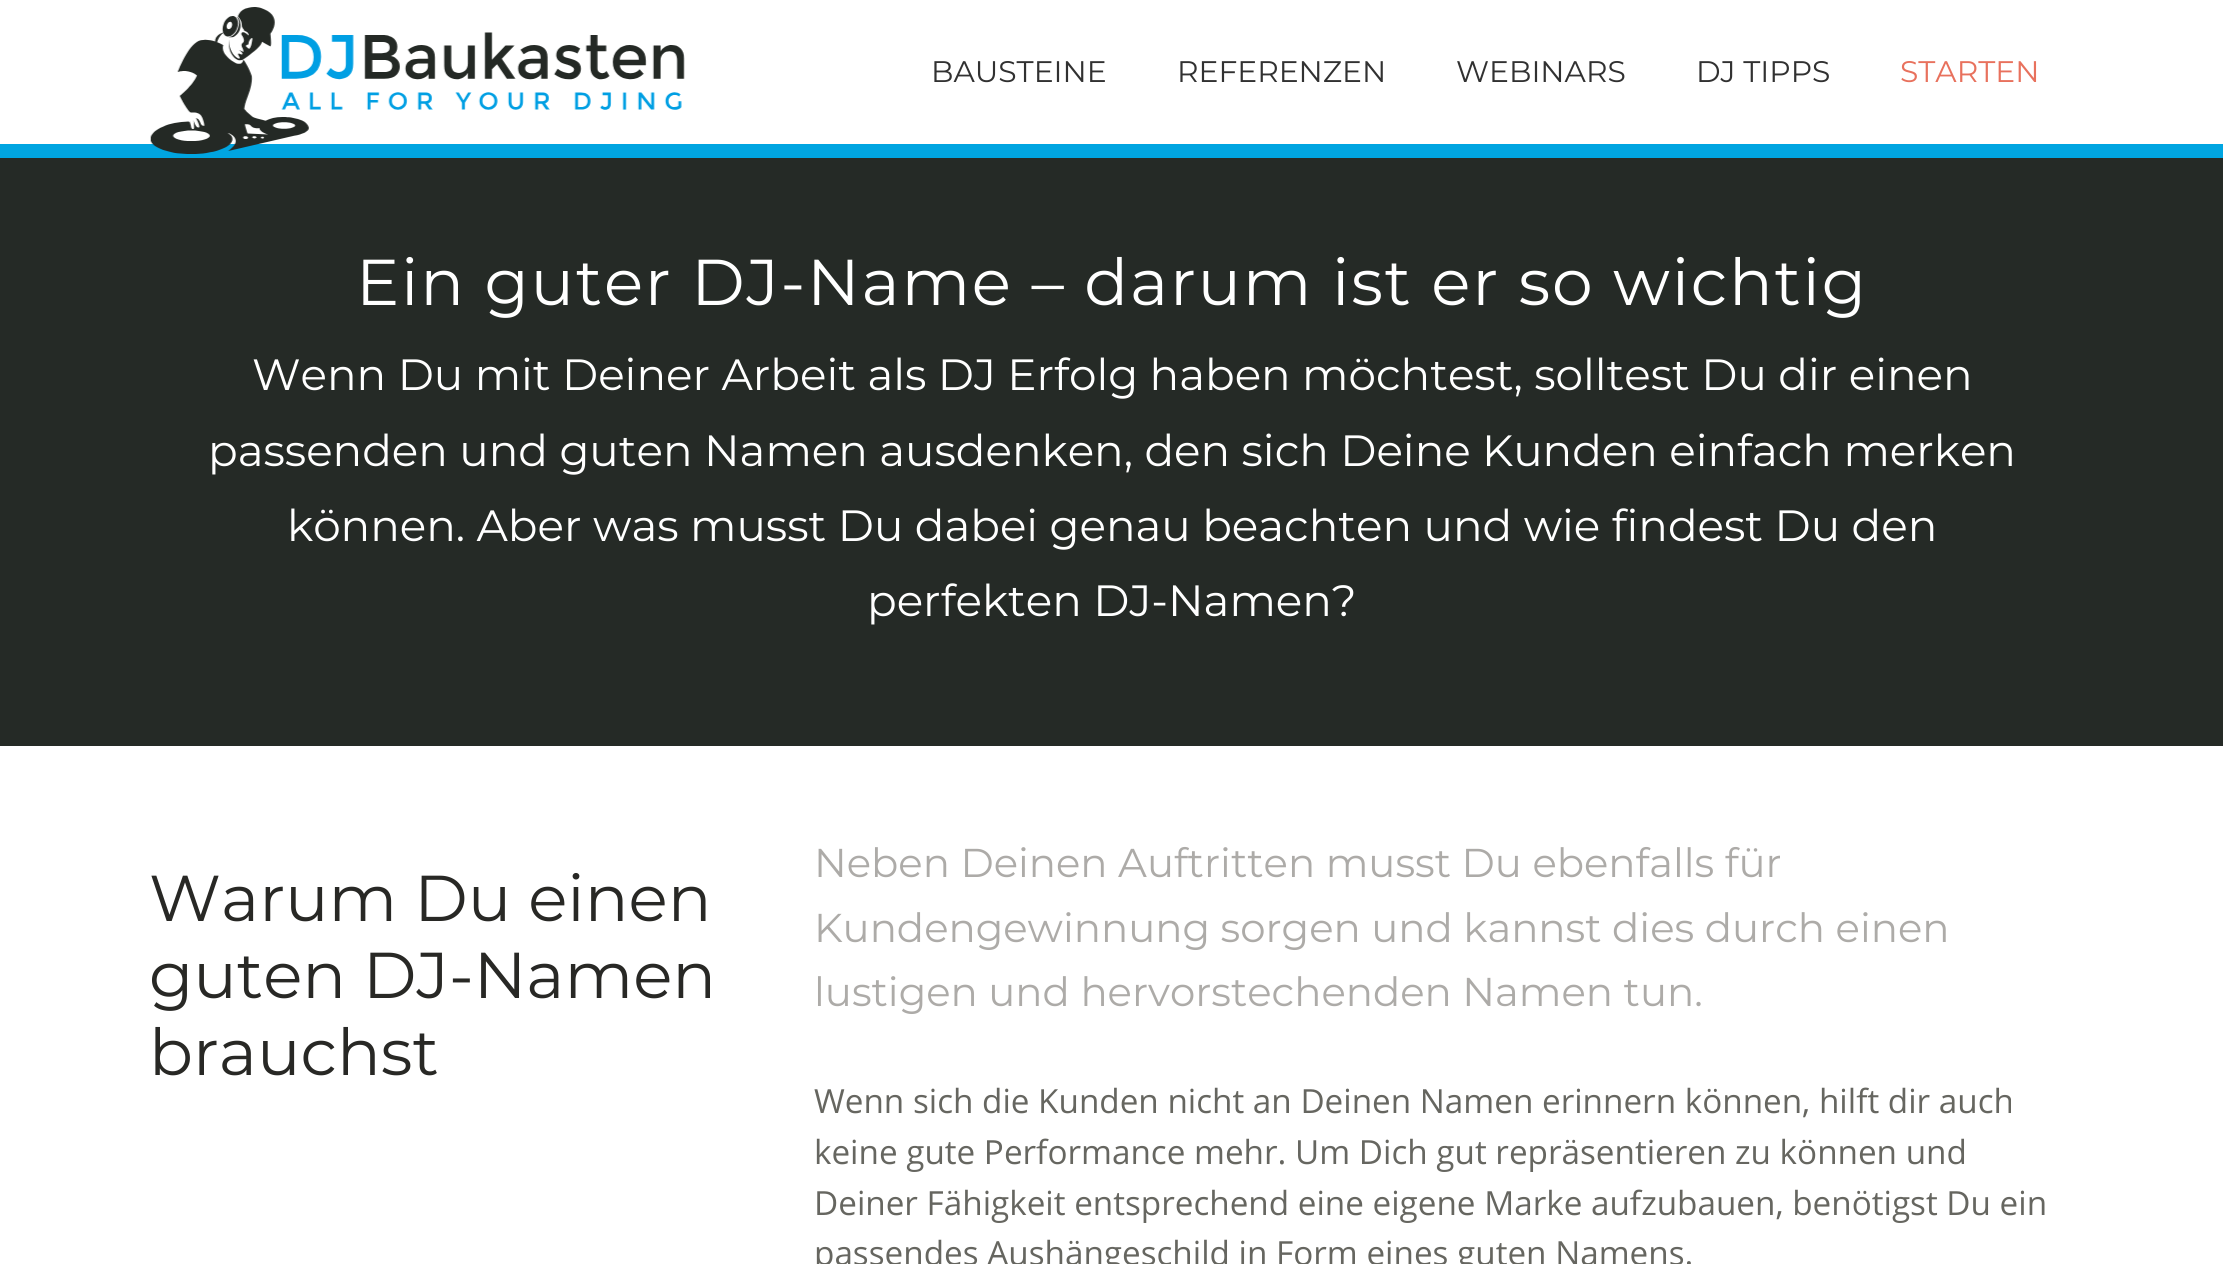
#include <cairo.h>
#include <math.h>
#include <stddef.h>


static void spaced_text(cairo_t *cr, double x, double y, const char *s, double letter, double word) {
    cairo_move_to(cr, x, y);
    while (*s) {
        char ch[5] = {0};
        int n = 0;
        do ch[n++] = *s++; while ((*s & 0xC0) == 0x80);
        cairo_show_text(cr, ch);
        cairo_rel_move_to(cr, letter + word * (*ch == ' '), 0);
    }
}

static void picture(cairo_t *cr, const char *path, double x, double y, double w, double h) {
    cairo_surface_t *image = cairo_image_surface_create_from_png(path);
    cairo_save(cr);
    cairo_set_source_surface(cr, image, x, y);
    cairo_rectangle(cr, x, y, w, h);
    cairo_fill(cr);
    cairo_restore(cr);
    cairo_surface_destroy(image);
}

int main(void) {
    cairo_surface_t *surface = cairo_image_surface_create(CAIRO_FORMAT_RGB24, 2223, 1264);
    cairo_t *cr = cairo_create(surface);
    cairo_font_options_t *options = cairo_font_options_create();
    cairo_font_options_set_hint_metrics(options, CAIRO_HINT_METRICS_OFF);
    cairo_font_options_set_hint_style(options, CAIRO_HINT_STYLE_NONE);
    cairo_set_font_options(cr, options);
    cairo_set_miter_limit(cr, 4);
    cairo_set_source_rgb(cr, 1, 1, 1);
    cairo_paint(cr);
    cairo_set_source_rgb(cr, 0, 0.647, 0.882);
    cairo_rectangle(cr, 0, 144, 2223, 14);
    cairo_fill(cr);
    picture(cr, "img1.png", 150, 7, 535, 147);
    cairo_select_font_face(cr, "Montserrat", CAIRO_FONT_SLANT_NORMAL, CAIRO_FONT_WEIGHT_NORMAL);
    cairo_set_font_size(cr, 29.75);
    cairo_set_source_rgb(cr, 0.192, 0.192, 0.192);
    cairo_move_to(cr, 931, 82);
    cairo_show_text(cr, "BAUSTEINE");
    cairo_move_to(cr, 1177, 82);
    cairo_show_text(cr, "REFERENZEN");
    cairo_move_to(cr, 1456, 82);
    cairo_show_text(cr, "WEBINARS");
    cairo_move_to(cr, 1696, 82);
    cairo_show_text(cr, "DJ TIPPS");
    cairo_set_source_rgb(cr, 0.91, 0.443, 0.365);
    cairo_move_to(cr, 1900, 82);
    cairo_show_text(cr, "STARTEN");
    cairo_set_source_rgb(cr, 0.145, 0.165, 0.149);
    cairo_rectangle(cr, 0, 158, 2223, 588);
    cairo_fill(cr);
    cairo_set_font_size(cr, 64.75);
    cairo_set_source_rgb(cr, 1, 1, 1);
    spaced_text(cr, 356, 305, "Ein guter DJ-Name – darum ist er so wichtig", 1.75, 0);
    cairo_set_font_size(cr, 43.75);
    cairo_move_to(cr, 252, 390);
    cairo_show_text(cr, "Wenn Du mit Deiner Arbeit als DJ Erfolg haben möchtest, solltest Du dir einen");
    cairo_move_to(cr, 208, 466);
    cairo_show_text(cr, "passenden und guten Namen ausdenken, den sich Deine Kunden einfach merken");
    cairo_move_to(cr, 287, 541);
    cairo_show_text(cr, "können. Aber was musst Du dabei genau beachten und wie findest Du den");
    cairo_move_to(cr, 867, 616);
    cairo_show_text(cr, "perfekten DJ-Namen?");
    cairo_set_font_size(cr, 64.75);
    cairo_set_source_rgb(cr, 0.157, 0.157, 0.145);
    cairo_move_to(cr, 149, 921);
    cairo_show_text(cr, "Warum Du einen");
    cairo_move_to(cr, 149, 998);
    cairo_show_text(cr, "guten DJ-Namen");
    cairo_move_to(cr, 149, 1075);
    cairo_show_text(cr, "brauchst");
    cairo_set_font_size(cr, 40.25);
    cairo_set_source_rgb(cr, 0.678, 0.671, 0.659);
    cairo_move_to(cr, 814, 877);
    cairo_show_text(cr, "Neben Deinen Auftritten musst Du ebenfalls für");
    cairo_move_to(cr, 814, 942);
    cairo_show_text(cr, "Kundengewinnung sorgen und kannst dies durch einen");
    cairo_move_to(cr, 814, 1006);
    cairo_show_text(cr, "lustigen und hervorstechenden Namen tun.");
    cairo_select_font_face(cr, "Open Sans", CAIRO_FONT_SLANT_NORMAL, CAIRO_FONT_WEIGHT_NORMAL);
    cairo_set_font_size(cr, 33.25);
    cairo_set_source_rgb(cr, 0.4, 0.4, 0.376);
    cairo_move_to(cr, 814, 1113);
    cairo_show_text(cr, "Wenn sich die Kunden nicht an Deinen Namen erinnern können, hilft dir auch");
    cairo_move_to(cr, 814, 1164);
    cairo_show_text(cr, "keine gute Performance mehr. Um Dich gut repräsentieren zu können und");
    cairo_move_to(cr, 814, 1215);
    cairo_show_text(cr, "Deiner Fähigkeit entsprechend eine eigene Marke aufzubauen, benötigst Du ein");
    cairo_move_to(cr, 814, 1265);
    cairo_show_text(cr, "passendes Aushängeschild in Form eines guten Namens.");
    cairo_surface_write_to_png(surface, "page.png");
    cairo_font_options_destroy(options);
    cairo_destroy(cr);
    cairo_surface_destroy(surface);
    return 0;
}
